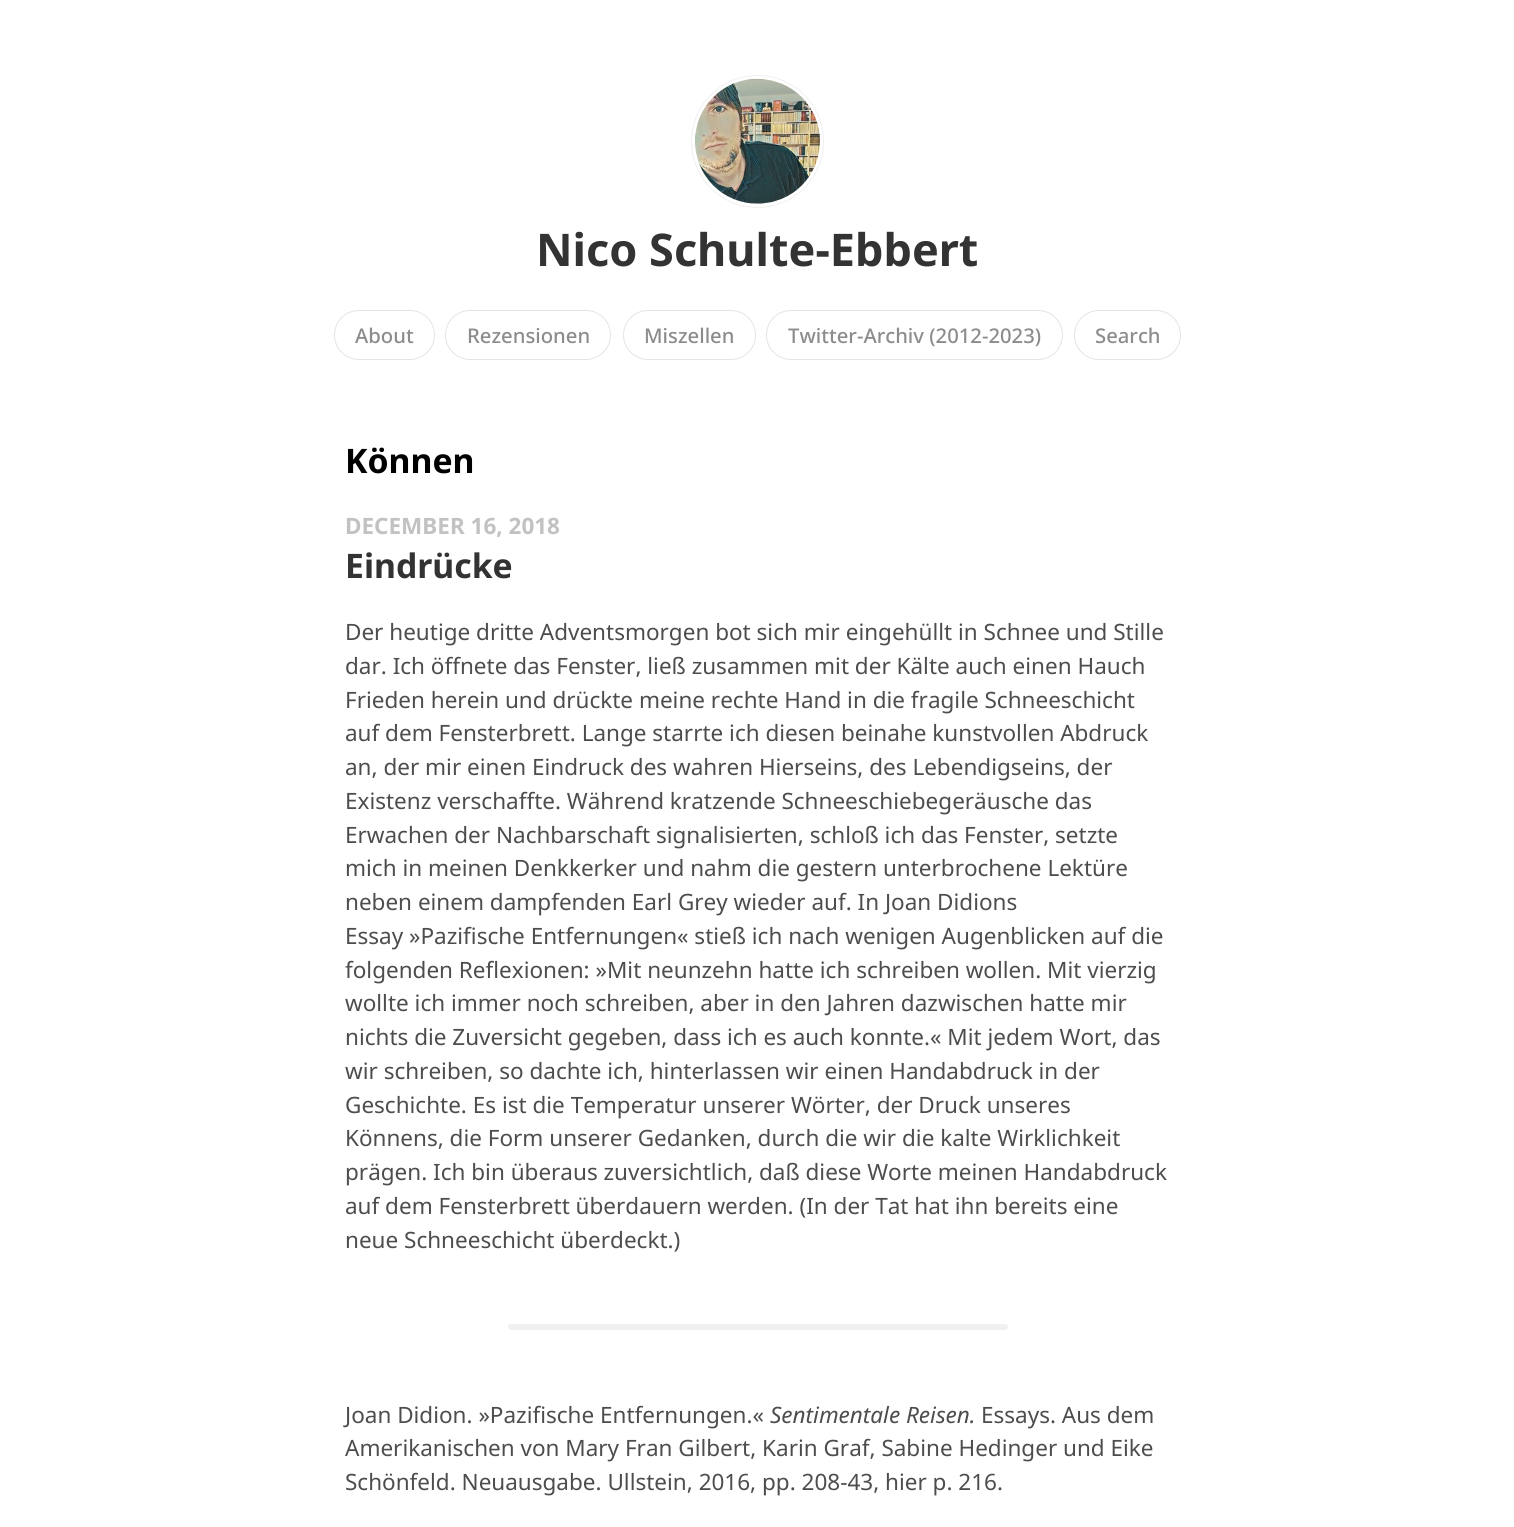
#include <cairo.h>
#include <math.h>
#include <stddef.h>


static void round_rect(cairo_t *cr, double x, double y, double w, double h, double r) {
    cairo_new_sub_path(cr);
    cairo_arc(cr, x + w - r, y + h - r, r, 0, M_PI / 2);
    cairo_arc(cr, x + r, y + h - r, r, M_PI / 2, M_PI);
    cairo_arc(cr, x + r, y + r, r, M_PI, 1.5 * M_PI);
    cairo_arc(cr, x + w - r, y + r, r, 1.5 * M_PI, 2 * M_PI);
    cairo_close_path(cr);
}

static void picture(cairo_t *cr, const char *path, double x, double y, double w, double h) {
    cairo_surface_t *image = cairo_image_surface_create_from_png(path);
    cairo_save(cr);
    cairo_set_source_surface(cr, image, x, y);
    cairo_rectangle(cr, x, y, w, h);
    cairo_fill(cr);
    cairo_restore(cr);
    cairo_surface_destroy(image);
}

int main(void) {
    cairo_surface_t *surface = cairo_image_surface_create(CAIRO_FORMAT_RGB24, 1514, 1527);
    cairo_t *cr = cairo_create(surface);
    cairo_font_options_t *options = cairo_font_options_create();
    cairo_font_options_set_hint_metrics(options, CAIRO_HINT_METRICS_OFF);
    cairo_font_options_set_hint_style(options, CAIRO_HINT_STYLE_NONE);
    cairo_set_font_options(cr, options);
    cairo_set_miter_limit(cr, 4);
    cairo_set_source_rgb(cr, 1, 1, 1);
    cairo_paint(cr);
    cairo_arc(cr, 757.5, 141.5, 66, 0, 2 * M_PI);
    cairo_set_source_rgb(cr, 0.941, 0.941, 0.941);
    cairo_set_line_width(cr, 1);
    cairo_stroke(cr);
    picture(cr, "img1.png", 695, 78, 125, 126);
    cairo_select_font_face(cr, "Noto Sans", CAIRO_FONT_SLANT_NORMAL, CAIRO_FONT_WEIGHT_BOLD);
    cairo_set_font_size(cr, 45);
    cairo_set_source_rgb(cr, 0.2, 0.2, 0.2);
    cairo_move_to(cr, 536, 266);
    cairo_show_text(cr, "Nico Schulte-Ebbert");
    round_rect(cr, 334.5, 310.5, 100, 49, 24.5);
    cairo_set_source_rgb(cr, 0.894, 0.894, 0.894);
    cairo_stroke(cr);
    cairo_select_font_face(cr, "Noto Sans Medium", CAIRO_FONT_SLANT_NORMAL, CAIRO_FONT_WEIGHT_NORMAL);
    cairo_set_font_size(cr, 20.25);
    cairo_set_source_rgb(cr, 0.549, 0.549, 0.549);
    cairo_move_to(cr, 355, 343);
    cairo_show_text(cr, "About");
    round_rect(cr, 445.5, 310.5, 165, 49, 24.5);
    cairo_set_source_rgb(cr, 0.894, 0.894, 0.894);
    cairo_stroke(cr);
    cairo_set_source_rgb(cr, 0.549, 0.549, 0.549);
    cairo_move_to(cr, 467, 343);
    cairo_show_text(cr, "Rezensionen");
    round_rect(cr, 623.5, 310.5, 132, 49, 24.5);
    cairo_set_source_rgb(cr, 0.894, 0.894, 0.894);
    cairo_stroke(cr);
    cairo_set_source_rgb(cr, 0.549, 0.549, 0.549);
    cairo_move_to(cr, 644, 343);
    cairo_show_text(cr, "Miszellen");
    round_rect(cr, 766.5, 310.5, 296, 49, 24.5);
    cairo_set_source_rgb(cr, 0.894, 0.894, 0.894);
    cairo_stroke(cr);
    cairo_set_source_rgb(cr, 0.549, 0.549, 0.549);
    cairo_move_to(cr, 788, 343);
    cairo_show_text(cr, "Twitter-Archiv (2012-2023)");
    round_rect(cr, 1074.5, 310.5, 106, 49, 24.5);
    cairo_set_source_rgb(cr, 0.894, 0.894, 0.894);
    cairo_stroke(cr);
    cairo_set_source_rgb(cr, 0.549, 0.549, 0.549);
    cairo_move_to(cr, 1095, 343);
    cairo_show_text(cr, "Search");
    cairo_select_font_face(cr, "Noto Sans", CAIRO_FONT_SLANT_NORMAL, CAIRO_FONT_WEIGHT_BOLD);
    cairo_set_font_size(cr, 33.75);
    cairo_set_source_rgb(cr, 0, 0, 0);
    cairo_move_to(cr, 345, 473);
    cairo_show_text(cr, "Können");
    cairo_set_font_size(cr, 22.5);
    cairo_set_source_rgb(cr, 0.761, 0.761, 0.761);
    cairo_move_to(cr, 345, 534);
    cairo_show_text(cr, "DECEMBER 16, 2018");
    cairo_set_font_size(cr, 33.75);
    cairo_set_source_rgb(cr, 0.2, 0.2, 0.2);
    cairo_move_to(cr, 345, 578);
    cairo_show_text(cr, "Eindrücke");
    cairo_select_font_face(cr, "Noto Sans", CAIRO_FONT_SLANT_NORMAL, CAIRO_FONT_WEIGHT_NORMAL);
    cairo_set_font_size(cr, 22.5);
    cairo_set_source_rgb(cr, 0.302, 0.302, 0.302);
    cairo_move_to(cr, 345, 640);
    cairo_show_text(cr, "Der heutige dritte Adventsmorgen bot sich mir eingehüllt in Schnee und Stille");
    cairo_move_to(cr, 345, 674);
    cairo_show_text(cr, "dar. Ich öffnete das Fenster, ließ zusammen mit der Kälte auch einen Hauch");
    cairo_move_to(cr, 345, 708);
    cairo_show_text(cr, "Frieden herein und drückte meine rechte Hand in die fragile Schneeschicht");
    cairo_move_to(cr, 345, 741);
    cairo_show_text(cr, "auf dem Fensterbrett. Lange starrte ich diesen beinahe kunstvollen Abdruck");
    cairo_move_to(cr, 345, 775);
    cairo_show_text(cr, "an, der mir einen Eindruck des wahren Hierseins, des Lebendigseins, der");
    cairo_move_to(cr, 345, 809);
    cairo_show_text(cr, "Existenz verschaffte. Während kratzende Schneeschiebegeräusche das");
    cairo_move_to(cr, 345, 843);
    cairo_show_text(cr, "Erwachen der Nachbarschaft signalisierten, schloß ich das Fenster, setzte");
    cairo_move_to(cr, 345, 876);
    cairo_show_text(cr, "mich in meinen Denkkerker und nahm die gestern unterbrochene Lektüre");
    cairo_move_to(cr, 345, 910);
    cairo_show_text(cr, "neben einem dampfenden Earl Grey wieder auf. In Joan Didions");
    cairo_move_to(cr, 345, 944);
    cairo_show_text(cr, "Essay »Pazifische Entfernungen« stieß ich nach wenigen Augenblicken auf die");
    cairo_move_to(cr, 345, 978);
    cairo_show_text(cr, "folgenden Reflexionen: »Mit neunzehn hatte ich schreiben wollen. Mit vierzig");
    cairo_move_to(cr, 345, 1011);
    cairo_show_text(cr, "wollte ich immer noch schreiben, aber in den Jahren dazwischen hatte mir");
    cairo_move_to(cr, 345, 1045);
    cairo_show_text(cr, "nichts die Zuversicht gegeben, dass ich es auch konnte.« Mit jedem Wort, das");
    cairo_move_to(cr, 345, 1079);
    cairo_show_text(cr, "wir schreiben, so dachte ich, hinterlassen wir einen Handabdruck in der");
    cairo_move_to(cr, 345, 1113);
    cairo_show_text(cr, "Geschichte. Es ist die Temperatur unserer Wörter, der Druck unseres");
    cairo_move_to(cr, 345, 1146);
    cairo_show_text(cr, "Könnens, die Form unserer Gedanken, durch die wir die kalte Wirklichkeit");
    cairo_move_to(cr, 345, 1180);
    cairo_show_text(cr, "prägen. Ich bin überaus zuversichtlich, daß diese Worte meinen Handabdruck");
    cairo_move_to(cr, 345, 1214);
    cairo_show_text(cr, "auf dem Fensterbrett überdauern werden. (In der Tat hat ihn bereits eine");
    cairo_move_to(cr, 345, 1248);
    cairo_show_text(cr, "neue Schneeschicht überdeckt.)");
    cairo_set_source_rgb(cr, 0.941, 0.941, 0.941);
    round_rect(cr, 508, 1324, 500, 6, 3);
    cairo_fill(cr);
    cairo_set_source_rgb(cr, 0.302, 0.302, 0.302);
    cairo_move_to(cr, 345, 1423);
    cairo_show_text(cr, "Joan Didion. »Pazifische Entfernungen.«");
    cairo_select_font_face(cr, "Noto Sans", CAIRO_FONT_SLANT_ITALIC, CAIRO_FONT_WEIGHT_NORMAL);
    cairo_move_to(cr, 770, 1423);
    cairo_show_text(cr, "Sentimentale Reisen.");
    cairo_select_font_face(cr, "Noto Sans", CAIRO_FONT_SLANT_NORMAL, CAIRO_FONT_WEIGHT_NORMAL);
    cairo_move_to(cr, 981, 1423);
    cairo_show_text(cr, "Essays. Aus dem");
    cairo_move_to(cr, 345, 1456);
    cairo_show_text(cr, "Amerikanischen von Mary Fran Gilbert, Karin Graf, Sabine Hedinger und Eike");
    cairo_move_to(cr, 345, 1490);
    cairo_show_text(cr, "Schönfeld. Neuausgabe. Ullstein, 2016, pp. 208-43, hier p. 216.");
    cairo_surface_write_to_png(surface, "page.png");
    cairo_font_options_destroy(options);
    cairo_destroy(cr);
    cairo_surface_destroy(surface);
    return 0;
}
